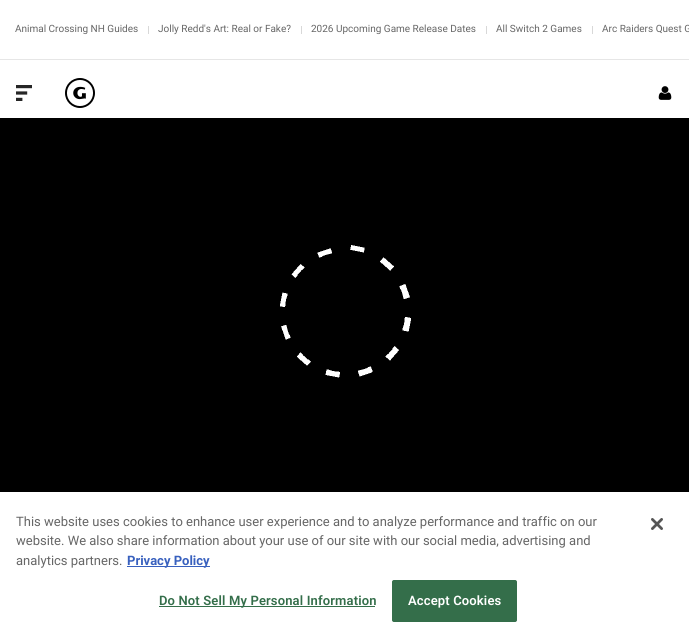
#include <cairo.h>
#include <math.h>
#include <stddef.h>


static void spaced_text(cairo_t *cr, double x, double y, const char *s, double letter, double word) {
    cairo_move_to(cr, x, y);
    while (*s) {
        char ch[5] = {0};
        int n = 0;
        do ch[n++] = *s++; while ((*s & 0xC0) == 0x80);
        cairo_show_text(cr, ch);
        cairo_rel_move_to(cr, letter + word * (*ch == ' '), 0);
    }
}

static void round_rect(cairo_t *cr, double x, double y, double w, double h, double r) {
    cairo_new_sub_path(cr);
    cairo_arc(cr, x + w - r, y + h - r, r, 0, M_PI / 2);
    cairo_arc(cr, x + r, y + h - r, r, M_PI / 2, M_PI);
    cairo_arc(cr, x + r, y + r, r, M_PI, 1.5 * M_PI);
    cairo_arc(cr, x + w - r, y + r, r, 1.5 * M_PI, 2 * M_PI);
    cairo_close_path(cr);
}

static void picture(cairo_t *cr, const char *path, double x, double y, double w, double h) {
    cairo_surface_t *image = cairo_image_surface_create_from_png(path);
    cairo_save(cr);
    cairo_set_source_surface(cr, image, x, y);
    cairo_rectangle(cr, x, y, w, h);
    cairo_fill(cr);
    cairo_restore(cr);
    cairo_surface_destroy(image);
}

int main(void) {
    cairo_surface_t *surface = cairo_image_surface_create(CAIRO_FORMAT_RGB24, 689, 638);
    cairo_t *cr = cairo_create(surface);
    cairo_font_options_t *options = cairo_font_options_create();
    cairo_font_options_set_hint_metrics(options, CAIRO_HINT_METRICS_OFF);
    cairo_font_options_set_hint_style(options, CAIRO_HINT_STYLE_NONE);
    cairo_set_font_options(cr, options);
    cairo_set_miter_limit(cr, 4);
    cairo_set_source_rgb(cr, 1, 1, 1);
    cairo_paint(cr);
    cairo_set_source_rgb(cr, 0.902, 0.902, 0.902);
    cairo_rectangle(cr, 0, 59, 689, 1);
    cairo_fill(cr);
    cairo_select_font_face(cr, "Roboto", CAIRO_FONT_SLANT_NORMAL, CAIRO_FONT_WEIGHT_NORMAL);
    cairo_set_font_size(cr, 10);
    cairo_set_source_rgb(cr, 0.4, 0.4, 0.4);
    cairo_move_to(cr, 15, 32);
    cairo_show_text(cr, "Animal Crossing NH Guides");
    cairo_set_source_rgb(cr, 0.847, 0.847, 0.847);
    cairo_rectangle(cr, 148, 26, 1, 8);
    cairo_fill(cr);
    cairo_set_source_rgb(cr, 0.4, 0.4, 0.4);
    cairo_move_to(cr, 158, 32);
    cairo_show_text(cr, "Jolly Redd's Art: Real or Fake?");
    cairo_set_source_rgb(cr, 0.847, 0.847, 0.847);
    cairo_rectangle(cr, 301, 26, 1, 8);
    cairo_fill(cr);
    cairo_set_source_rgb(cr, 0.4, 0.4, 0.4);
    cairo_move_to(cr, 311, 32);
    cairo_show_text(cr, "2026 Upcoming Game Release Dates");
    cairo_set_source_rgb(cr, 0.847, 0.847, 0.847);
    cairo_rectangle(cr, 486, 26, 1, 8);
    cairo_fill(cr);
    cairo_set_source_rgb(cr, 0.4, 0.4, 0.4);
    cairo_move_to(cr, 496, 32);
    cairo_show_text(cr, "All Switch 2 Games");
    cairo_set_source_rgb(cr, 0.847, 0.847, 0.847);
    cairo_rectangle(cr, 592, 26, 1, 8);
    cairo_fill(cr);
    cairo_set_source_rgb(cr, 0.4, 0.4, 0.4);
    cairo_move_to(cr, 602, 32);
    cairo_show_text(cr, "Arc Raiders Quest G");
    picture(cr, "img1.png", 16, 85, 16, 16);
    picture(cr, "img2.png", 65, 78, 30, 30);
    picture(cr, "img3.png", 658, 86, 14, 14);
    cairo_set_source_rgb(cr, 0, 0, 0);
    cairo_rectangle(cr, 0, 118, 689, 374);
    cairo_fill(cr);
    picture(cr, "img4.png", 280, 245, 131, 133);
    cairo_set_font_size(cr, 13);
    cairo_set_source_rgb(cr, 0.4, 0.4, 0.4);
    cairo_move_to(cr, 16, 526);
    cairo_show_text(cr, "This website uses cookies to enhance user experience and to analyze performance and traffic on our");
    cairo_move_to(cr, 16, 545);
    cairo_show_text(cr, "website. We also share information about your use of our site with our social media, advertising and");
    cairo_move_to(cr, 16, 565);
    cairo_show_text(cr, "analytics partners.");
    cairo_set_source_rgb(cr, 0.22, 0.376, 0.745);
    cairo_rectangle(cr, 127, 566, 83, 1);
    cairo_fill(cr);
    cairo_select_font_face(cr, "Roboto", CAIRO_FONT_SLANT_NORMAL, CAIRO_FONT_WEIGHT_BOLD);
    cairo_move_to(cr, 127, 565);
    cairo_show_text(cr, "Privacy Policy");
    cairo_set_source_rgb(cr, 0.204, 0.431, 0.29);
    cairo_rectangle(cr, 159, 606, 216, 1);
    cairo_fill(cr);
    cairo_select_font_face(cr, "Roboto SemiBold", CAIRO_FONT_SLANT_NORMAL, CAIRO_FONT_WEIGHT_NORMAL);
    spaced_text(cr, 159, 605, "Do Not Sell My Personal Information", 0.15, 0);
    round_rect(cr, 392.5, 580.5, 124, 41, 1.5);
    cairo_fill_preserve(cr);
    cairo_set_line_width(cr, 1);
    cairo_stroke(cr);
    cairo_set_source_rgb(cr, 1, 1, 1);
    spaced_text(cr, 408, 605, "Accept Cookies", 0.15, 0);
    picture(cr, "img5.png", 651, 518, 12, 12);
    cairo_surface_write_to_png(surface, "page.png");
    cairo_font_options_destroy(options);
    cairo_destroy(cr);
    cairo_surface_destroy(surface);
    return 0;
}
